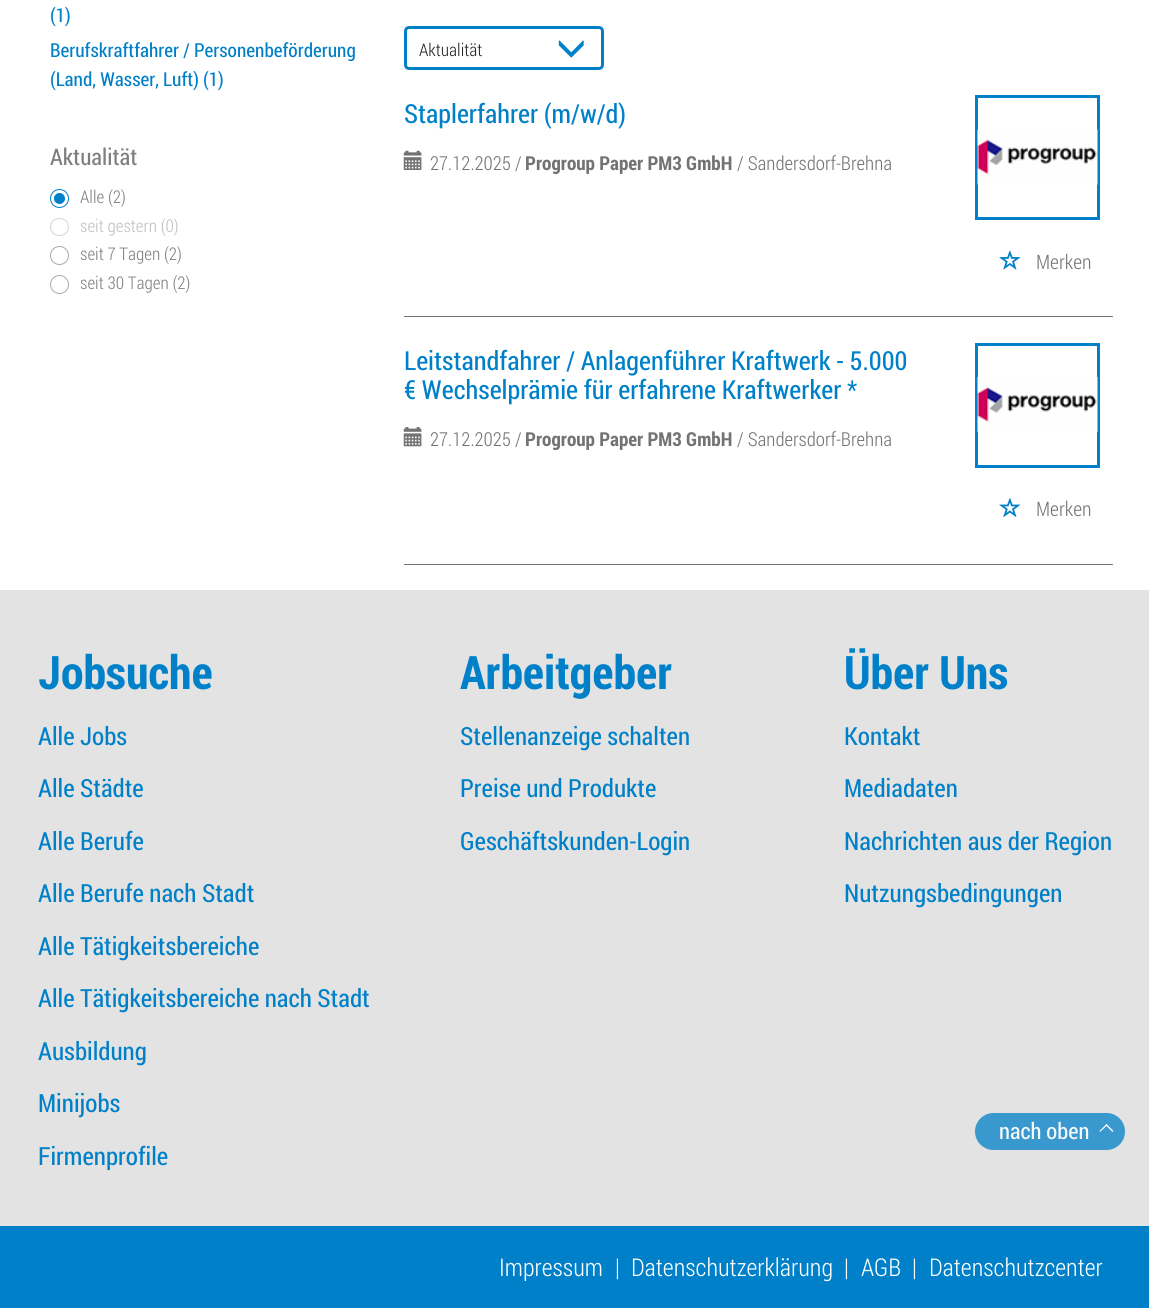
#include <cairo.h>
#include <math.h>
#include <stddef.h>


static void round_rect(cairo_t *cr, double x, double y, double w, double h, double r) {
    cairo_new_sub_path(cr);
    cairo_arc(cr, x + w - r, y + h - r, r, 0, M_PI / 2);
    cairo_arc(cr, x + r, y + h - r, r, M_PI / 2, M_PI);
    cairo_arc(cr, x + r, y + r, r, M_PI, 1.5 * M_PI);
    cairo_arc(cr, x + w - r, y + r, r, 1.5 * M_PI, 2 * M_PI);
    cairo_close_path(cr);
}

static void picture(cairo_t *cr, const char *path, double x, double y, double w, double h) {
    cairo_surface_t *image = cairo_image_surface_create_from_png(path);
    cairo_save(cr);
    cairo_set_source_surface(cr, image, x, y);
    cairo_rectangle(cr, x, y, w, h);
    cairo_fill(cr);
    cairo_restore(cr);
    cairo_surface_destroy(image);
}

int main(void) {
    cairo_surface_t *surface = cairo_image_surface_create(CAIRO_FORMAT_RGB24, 1149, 1308);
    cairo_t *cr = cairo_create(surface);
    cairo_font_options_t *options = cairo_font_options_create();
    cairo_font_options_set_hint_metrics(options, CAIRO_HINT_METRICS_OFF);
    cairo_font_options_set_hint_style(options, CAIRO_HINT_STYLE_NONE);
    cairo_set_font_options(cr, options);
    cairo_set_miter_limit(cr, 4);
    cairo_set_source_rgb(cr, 1, 1, 1);
    cairo_paint(cr);
    cairo_select_font_face(cr, "Roboto Condensed", CAIRO_FONT_SLANT_NORMAL, CAIRO_FONT_WEIGHT_NORMAL);
    cairo_set_font_size(cr, 19.25);
    cairo_set_source_rgb(cr, 0, 0.502, 0.784);
    cairo_move_to(cr, 50, 22);
    cairo_show_text(cr, "(1)");
    cairo_move_to(cr, 50, 57);
    cairo_show_text(cr, "Berufskraftfahrer / Personenbeförderung");
    cairo_move_to(cr, 50, 86);
    cairo_show_text(cr, "(Land, Wasser, Luft) (1)");
    cairo_set_font_size(cr, 23);
    cairo_set_source_rgb(cr, 0.498, 0.498, 0.498);
    cairo_move_to(cr, 50, 165);
    cairo_show_text(cr, "Aktualität");
    cairo_new_path(cr);
    cairo_arc(cr, 59.5, 198.5, 9, 0, 2 * M_PI);
    cairo_set_source_rgb(cr, 0, 0.502, 0.784);
    cairo_set_line_width(cr, 1);
    cairo_stroke(cr);
    cairo_select_font_face(cr, "Roboto Condensed Light", CAIRO_FONT_SLANT_NORMAL, CAIRO_FONT_WEIGHT_NORMAL);
    cairo_set_font_size(cr, 17.5);
    cairo_set_source_rgb(cr, 0.498, 0.498, 0.498);
    cairo_move_to(cr, 80, 203);
    cairo_show_text(cr, "Alle (2)");
    cairo_set_source_rgb(cr, 0, 0.502, 0.784);
    cairo_new_path(cr);
    cairo_arc(cr, 59.5, 198.5, 5.5, 0, 2 * M_PI);
    cairo_fill(cr);
    round_rect(cr, 50.5, 218.5, 18, 17, 8.5);
    cairo_set_source_rgb(cr, 0.835, 0.835, 0.835);
    cairo_stroke(cr);
    cairo_set_source_rgb(cr, 0.749, 0.749, 0.749);
    cairo_move_to(cr, 80, 232);
    cairo_show_text(cr, "seit gestern (0)");
    cairo_new_path(cr);
    cairo_arc(cr, 59.5, 255.5, 9, 0, 2 * M_PI);
    cairo_set_source_rgb(cr, 0.667, 0.667, 0.667);
    cairo_stroke(cr);
    cairo_set_source_rgb(cr, 0.498, 0.498, 0.498);
    cairo_move_to(cr, 80, 260);
    cairo_show_text(cr, "seit 7 Tagen (2)");
    cairo_new_path(cr);
    cairo_arc(cr, 59.5, 284.5, 9, 0, 2 * M_PI);
    cairo_set_source_rgb(cr, 0.667, 0.667, 0.667);
    cairo_stroke(cr);
    cairo_set_source_rgb(cr, 0.498, 0.498, 0.498);
    cairo_move_to(cr, 80, 289);
    cairo_show_text(cr, "seit 30 Tagen (2)");
    round_rect(cr, 405.5, 27.5, 197, 41, 3.5);
    cairo_set_source_rgb(cr, 0, 0.502, 0.784);
    cairo_set_line_width(cr, 3);
    cairo_stroke(cr);
    cairo_set_source_rgb(cr, 0.141, 0.141, 0.141);
    cairo_move_to(cr, 419, 56);
    cairo_show_text(cr, "Aktualität");
    picture(cr, "img1.png", 558, 40, 26, 18);
    cairo_select_font_face(cr, "Roboto Condensed", CAIRO_FONT_SLANT_NORMAL, CAIRO_FONT_WEIGHT_NORMAL);
    cairo_set_font_size(cr, 26.25);
    cairo_set_source_rgb(cr, 0, 0.502, 0.784);
    cairo_move_to(cr, 404, 123);
    cairo_show_text(cr, "Staplerfahrer (m/w/d)");
    picture(cr, "img2.png", 403, 150, 19, 20);
    cairo_select_font_face(cr, "Roboto Condensed Light", CAIRO_FONT_SLANT_NORMAL, CAIRO_FONT_WEIGHT_NORMAL);
    cairo_set_font_size(cr, 19.25);
    cairo_set_source_rgb(cr, 0.451, 0.451, 0.451);
    cairo_move_to(cr, 430, 170);
    cairo_show_text(cr, "27.12.2025 /");
    cairo_select_font_face(cr, "Roboto Condensed", CAIRO_FONT_SLANT_NORMAL, CAIRO_FONT_WEIGHT_BOLD);
    cairo_move_to(cr, 525, 170);
    cairo_show_text(cr, "Progroup Paper PM3 GmbH");
    cairo_select_font_face(cr, "Roboto Condensed Light", CAIRO_FONT_SLANT_NORMAL, CAIRO_FONT_WEIGHT_NORMAL);
    cairo_move_to(cr, 737, 170);
    cairo_show_text(cr, "/ Sandersdorf-Brehna");
    cairo_rectangle(cr, 976.5, 96.5, 122, 122);
    cairo_set_source_rgb(cr, 0, 0.502, 0.784);
    cairo_stroke(cr);
    picture(cr, "img3.png", 977, 129, 121, 56);
    picture(cr, "img4.png", 999, 250, 22, 20);
    cairo_set_font_size(cr, 20);
    cairo_set_source_rgb(cr, 0.451, 0.451, 0.451);
    cairo_move_to(cr, 1036, 269);
    cairo_show_text(cr, "Merken");
    cairo_rectangle(cr, 404, 316, 709, 1);
    cairo_fill(cr);
    cairo_select_font_face(cr, "Roboto Condensed", CAIRO_FONT_SLANT_NORMAL, CAIRO_FONT_WEIGHT_NORMAL);
    cairo_set_font_size(cr, 26.25);
    cairo_set_source_rgb(cr, 0, 0.502, 0.784);
    cairo_move_to(cr, 404, 370);
    cairo_show_text(cr, "Leitstandfahrer / Anlagenführer Kraftwerk - 5.000");
    cairo_move_to(cr, 404, 399);
    cairo_show_text(cr, "€ Wechselprämie für erfahrene Kraftwerker *");
    picture(cr, "img5.png", 403, 427, 19, 20);
    cairo_select_font_face(cr, "Roboto Condensed Light", CAIRO_FONT_SLANT_NORMAL, CAIRO_FONT_WEIGHT_NORMAL);
    cairo_set_font_size(cr, 19.25);
    cairo_set_source_rgb(cr, 0.451, 0.451, 0.451);
    cairo_move_to(cr, 430, 446);
    cairo_show_text(cr, "27.12.2025 /");
    cairo_select_font_face(cr, "Roboto Condensed", CAIRO_FONT_SLANT_NORMAL, CAIRO_FONT_WEIGHT_BOLD);
    cairo_move_to(cr, 525, 446);
    cairo_show_text(cr, "Progroup Paper PM3 GmbH");
    cairo_select_font_face(cr, "Roboto Condensed Light", CAIRO_FONT_SLANT_NORMAL, CAIRO_FONT_WEIGHT_NORMAL);
    cairo_move_to(cr, 737, 446);
    cairo_show_text(cr, "/ Sandersdorf-Brehna");
    cairo_rectangle(cr, 976.5, 344.5, 122, 122);
    cairo_set_source_rgb(cr, 0, 0.502, 0.784);
    cairo_stroke(cr);
    picture(cr, "img6.png", 977, 377, 121, 55);
    picture(cr, "img7.png", 999, 498, 22, 19);
    cairo_set_font_size(cr, 20);
    cairo_set_source_rgb(cr, 0.451, 0.451, 0.451);
    cairo_move_to(cr, 1036, 516);
    cairo_show_text(cr, "Merken");
    cairo_rectangle(cr, 404, 564, 709, 1);
    cairo_fill(cr);
    cairo_set_source_rgb(cr, 0.89, 0.89, 0.89);
    cairo_rectangle(cr, 0, 590, 1149, 636);
    cairo_fill(cr);
    cairo_select_font_face(cr, "Roboto Condensed", CAIRO_FONT_SLANT_NORMAL, CAIRO_FONT_WEIGHT_BOLD);
    cairo_set_font_size(cr, 46.25);
    cairo_set_source_rgb(cr, 0, 0.502, 0.784);
    cairo_move_to(cr, 38, 689);
    cairo_show_text(cr, "Jobsuche");
    cairo_select_font_face(cr, "Roboto Condensed", CAIRO_FONT_SLANT_NORMAL, CAIRO_FONT_WEIGHT_NORMAL);
    cairo_set_font_size(cr, 25);
    cairo_move_to(cr, 38, 745);
    cairo_show_text(cr, "Alle Jobs");
    cairo_move_to(cr, 38, 797);
    cairo_show_text(cr, "Alle Städte");
    cairo_move_to(cr, 38, 850);
    cairo_show_text(cr, "Alle Berufe");
    cairo_move_to(cr, 38, 902);
    cairo_show_text(cr, "Alle Berufe nach Stadt");
    cairo_move_to(cr, 38, 955);
    cairo_show_text(cr, "Alle Tätigkeitsbereiche");
    cairo_move_to(cr, 38, 1007);
    cairo_show_text(cr, "Alle Tätigkeitsbereiche nach Stadt");
    cairo_move_to(cr, 38, 1060);
    cairo_show_text(cr, "Ausbildung");
    cairo_move_to(cr, 38, 1112);
    cairo_show_text(cr, "Minijobs");
    cairo_move_to(cr, 38, 1165);
    cairo_show_text(cr, "Firmenprofile");
    cairo_select_font_face(cr, "Roboto Condensed", CAIRO_FONT_SLANT_NORMAL, CAIRO_FONT_WEIGHT_BOLD);
    cairo_set_font_size(cr, 46.25);
    cairo_move_to(cr, 460, 689);
    cairo_show_text(cr, "Arbeitgeber");
    cairo_select_font_face(cr, "Roboto Condensed", CAIRO_FONT_SLANT_NORMAL, CAIRO_FONT_WEIGHT_NORMAL);
    cairo_set_font_size(cr, 25);
    cairo_move_to(cr, 460, 745);
    cairo_show_text(cr, "Stellenanzeige schalten");
    cairo_move_to(cr, 460, 797);
    cairo_show_text(cr, "Preise und Produkte");
    cairo_move_to(cr, 460, 850);
    cairo_show_text(cr, "Geschäftskunden-Login");
    cairo_select_font_face(cr, "Roboto Condensed", CAIRO_FONT_SLANT_NORMAL, CAIRO_FONT_WEIGHT_BOLD);
    cairo_set_font_size(cr, 46.25);
    cairo_move_to(cr, 844, 689);
    cairo_show_text(cr, "Über Uns");
    cairo_select_font_face(cr, "Roboto Condensed", CAIRO_FONT_SLANT_NORMAL, CAIRO_FONT_WEIGHT_NORMAL);
    cairo_set_font_size(cr, 25);
    cairo_move_to(cr, 844, 745);
    cairo_show_text(cr, "Kontakt");
    cairo_move_to(cr, 844, 797);
    cairo_show_text(cr, "Mediadaten");
    cairo_move_to(cr, 844, 850);
    cairo_show_text(cr, "Nachrichten aus der Region");
    cairo_move_to(cr, 844, 902);
    cairo_show_text(cr, "Nutzungsbedingungen");
    cairo_rectangle(cr, 0, 1226, 1149, 82);
    cairo_fill(cr);
    cairo_set_source_rgb(cr, 0.224, 0.6, 0.812);
    round_rect(cr, 975, 1113, 150, 37, 18.5);
    cairo_fill(cr);
    cairo_set_font_size(cr, 22.5);
    cairo_set_source_rgb(cr, 0.973, 0.973, 0.973);
    cairo_move_to(cr, 999, 1139);
    cairo_show_text(cr, "nach oben");
    cairo_new_path(cr);
    cairo_move_to(cr, 1099.5, 1131);
    cairo_line_to(cr, 1106.5, 1124);
    cairo_line_to(cr, 1107.5, 1125);
    cairo_line_to(cr, 1100, 1132);
    cairo_close_path(cr);
    cairo_fill(cr);
    cairo_new_path(cr);
    cairo_move_to(cr, 1105.5, 1125);
    cairo_line_to(cr, 1106.5, 1124);
    cairo_line_to(cr, 1113.5, 1131);
    cairo_line_to(cr, 1112.5, 1132);
    cairo_close_path(cr);
    cairo_fill(cr);
    cairo_select_font_face(cr, "Roboto Condensed Light", CAIRO_FONT_SLANT_NORMAL, CAIRO_FONT_WEIGHT_NORMAL);
    cairo_set_font_size(cr, 24.5);
    cairo_set_source_rgb(cr, 1, 1, 1);
    cairo_move_to(cr, 499, 1276);
    cairo_show_text(cr, "Impressum");
    cairo_move_to(cr, 615, 1276);
    cairo_show_text(cr, "|");
    cairo_move_to(cr, 631, 1276);
    cairo_show_text(cr, "Datenschutzerklärung");
    cairo_move_to(cr, 844, 1276);
    cairo_show_text(cr, "|");
    cairo_move_to(cr, 861, 1276);
    cairo_show_text(cr, "AGB");
    cairo_move_to(cr, 912, 1276);
    cairo_show_text(cr, "|");
    cairo_move_to(cr, 929, 1276);
    cairo_show_text(cr, "Datenschutzcenter");
    cairo_surface_write_to_png(surface, "page.png");
    cairo_font_options_destroy(options);
    cairo_destroy(cr);
    cairo_surface_destroy(surface);
    return 0;
}
